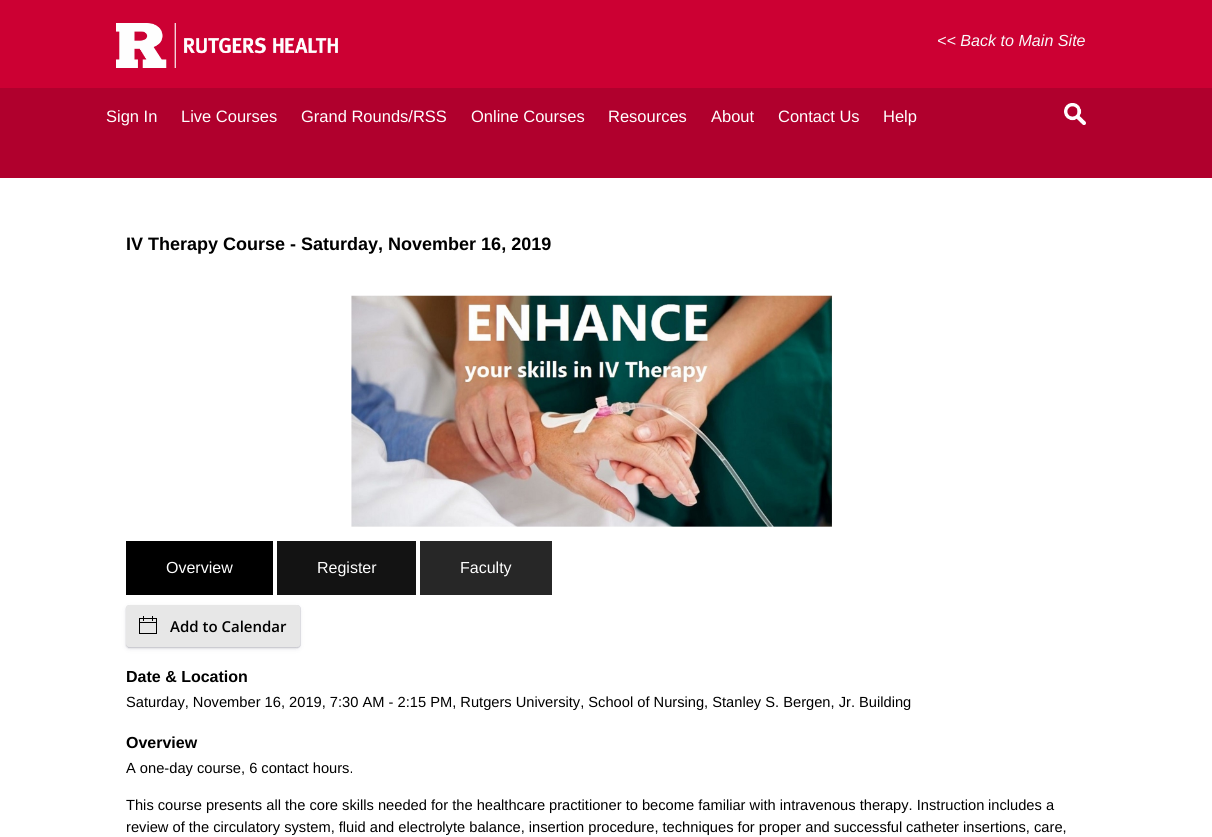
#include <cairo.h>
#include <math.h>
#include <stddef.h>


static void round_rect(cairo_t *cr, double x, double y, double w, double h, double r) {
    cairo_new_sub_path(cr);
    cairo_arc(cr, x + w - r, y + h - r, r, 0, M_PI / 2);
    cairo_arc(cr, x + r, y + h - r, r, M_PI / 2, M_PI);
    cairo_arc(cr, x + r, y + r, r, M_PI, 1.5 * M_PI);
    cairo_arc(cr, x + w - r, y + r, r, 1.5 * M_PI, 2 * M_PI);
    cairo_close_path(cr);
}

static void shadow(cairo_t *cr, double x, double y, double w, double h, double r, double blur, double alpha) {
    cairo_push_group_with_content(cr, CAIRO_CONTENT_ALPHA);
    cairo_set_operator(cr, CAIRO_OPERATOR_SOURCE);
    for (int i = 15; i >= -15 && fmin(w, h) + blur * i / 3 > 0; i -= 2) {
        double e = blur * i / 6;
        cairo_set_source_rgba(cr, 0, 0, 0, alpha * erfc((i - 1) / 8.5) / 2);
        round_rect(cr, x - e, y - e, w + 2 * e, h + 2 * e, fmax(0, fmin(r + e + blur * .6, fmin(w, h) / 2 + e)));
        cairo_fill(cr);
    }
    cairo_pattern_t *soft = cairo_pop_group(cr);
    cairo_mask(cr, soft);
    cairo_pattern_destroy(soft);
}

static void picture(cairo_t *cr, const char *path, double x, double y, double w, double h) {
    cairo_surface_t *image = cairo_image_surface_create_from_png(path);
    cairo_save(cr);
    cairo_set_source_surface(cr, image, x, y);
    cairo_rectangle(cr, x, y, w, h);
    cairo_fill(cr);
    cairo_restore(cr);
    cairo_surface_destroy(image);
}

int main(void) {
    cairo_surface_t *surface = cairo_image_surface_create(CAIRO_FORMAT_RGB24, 1212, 837);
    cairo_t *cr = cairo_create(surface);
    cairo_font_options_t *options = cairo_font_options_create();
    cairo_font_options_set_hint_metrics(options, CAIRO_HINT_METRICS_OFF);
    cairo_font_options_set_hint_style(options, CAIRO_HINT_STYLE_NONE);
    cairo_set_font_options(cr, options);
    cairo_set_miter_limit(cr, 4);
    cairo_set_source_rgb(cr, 1, 1, 1);
    cairo_paint(cr);
    cairo_set_source_rgb(cr, 0.8, 0, 0.2);
    cairo_rectangle(cr, 0, 0, 1212, 88);
    cairo_fill(cr);
    picture(cr, "img1.png", 116, 23, 222, 45);
    cairo_select_font_face(cr, "Liberation Sans", CAIRO_FONT_SLANT_ITALIC, CAIRO_FONT_WEIGHT_NORMAL);
    cairo_set_font_size(cr, 16.1);
    cairo_set_source_rgb(cr, 0.973, 0.973, 0.973);
    cairo_move_to(cr, 937, 46);
    cairo_show_text(cr, "<< Back to Main Site");
    cairo_set_source_rgb(cr, 0.69, 0, 0.176);
    cairo_rectangle(cr, 0, 88, 1212, 90);
    cairo_fill(cr);
    cairo_select_font_face(cr, "Liberation Sans", CAIRO_FONT_SLANT_NORMAL, CAIRO_FONT_WEIGHT_NORMAL);
    cairo_set_font_size(cr, 16.5);
    cairo_set_source_rgb(cr, 1, 1, 1);
    cairo_move_to(cr, 106, 122);
    cairo_show_text(cr, "Sign In");
    cairo_move_to(cr, 181, 122);
    cairo_show_text(cr, "Live Courses");
    cairo_move_to(cr, 301, 122);
    cairo_show_text(cr, "Grand Rounds/RSS");
    cairo_move_to(cr, 471, 122);
    cairo_show_text(cr, "Online Courses");
    cairo_move_to(cr, 608, 122);
    cairo_show_text(cr, "Resources");
    cairo_move_to(cr, 711, 122);
    cairo_show_text(cr, "About");
    cairo_move_to(cr, 778, 122);
    cairo_show_text(cr, "Contact Us");
    cairo_move_to(cr, 883, 122);
    cairo_show_text(cr, "Help");
    picture(cr, "img2.png", 1064, 103, 22, 22);
    cairo_select_font_face(cr, "Liberation Sans", CAIRO_FONT_SLANT_NORMAL, CAIRO_FONT_WEIGHT_BOLD);
    cairo_set_font_size(cr, 18);
    cairo_set_source_rgb(cr, 0, 0, 0);
    cairo_move_to(cr, 126, 250);
    cairo_show_text(cr, "IV Therapy Course - Saturday, November 16, 2019");
    picture(cr, "img3.png", 351, 295, 482, 232);
    cairo_rectangle(cr, 126, 541, 147, 54);
    cairo_fill(cr);
    cairo_select_font_face(cr, "Liberation Sans", CAIRO_FONT_SLANT_NORMAL, CAIRO_FONT_WEIGHT_NORMAL);
    cairo_set_font_size(cr, 16);
    cairo_set_source_rgb(cr, 1, 1, 1);
    cairo_move_to(cr, 166, 573);
    cairo_show_text(cr, "Overview");
    cairo_set_source_rgb(cr, 0.075, 0.075, 0.075);
    cairo_rectangle(cr, 277, 541, 139, 54);
    cairo_fill(cr);
    cairo_set_source_rgb(cr, 1, 1, 1);
    cairo_move_to(cr, 317, 573);
    cairo_show_text(cr, "Register");
    cairo_set_source_rgb(cr, 0.153, 0.153, 0.153);
    cairo_rectangle(cr, 420, 541, 132, 54);
    cairo_fill(cr);
    cairo_set_source_rgb(cr, 1, 1, 1);
    cairo_move_to(cr, 460, 573);
    cairo_show_text(cr, "Faculty");
    cairo_set_source_rgb(cr, 0, 0, 0);
    shadow(cr, 126, 606, 174, 42, 3, 1, 0.08);
    shadow(cr, 126, 606, 174, 42, 3, 1, 0.07);
    cairo_set_source_rgb(cr, 0.196, 0.196, 0.365);
    shadow(cr, 126, 607, 174, 42, 3, 2.5, 0.1);
    round_rect(cr, 126.25, 605.25, 174.5, 42.5, 3.75);
    cairo_set_source_rgba(cr, 0.196, 0.196, 0.365, 0.17);
    cairo_set_line_width(cr, 0.5);
    cairo_stroke(cr);
    cairo_set_source_rgb(cr, 0.906, 0.906, 0.906);
    round_rect(cr, 126, 605, 174, 42, 3);
    cairo_fill(cr);
    picture(cr, "img4.png", 139, 616, 18, 18);
    cairo_select_font_face(cr, "Open Sans SemiBold", CAIRO_FONT_SLANT_NORMAL, CAIRO_FONT_WEIGHT_NORMAL);
    cairo_set_font_size(cr, 15);
    cairo_set_source_rgb(cr, 0, 0, 0);
    cairo_move_to(cr, 170, 632);
    cairo_show_text(cr, "Add to Calendar");
    cairo_select_font_face(cr, "Liberation Sans", CAIRO_FONT_SLANT_NORMAL, CAIRO_FONT_WEIGHT_BOLD);
    cairo_set_font_size(cr, 16);
    cairo_move_to(cr, 126, 682);
    cairo_show_text(cr, "Date & Location");
    cairo_select_font_face(cr, "Liberation Sans", CAIRO_FONT_SLANT_NORMAL, CAIRO_FONT_WEIGHT_NORMAL);
    cairo_set_font_size(cr, 14.67);
    cairo_move_to(cr, 126, 707);
    cairo_show_text(cr, "Saturday, November 16, 2019, 7:30 AM - 2:15 PM, Rutgers University, School of Nursing, Stanley S. Bergen, Jr. Building");
    cairo_select_font_face(cr, "Liberation Sans", CAIRO_FONT_SLANT_NORMAL, CAIRO_FONT_WEIGHT_BOLD);
    cairo_set_font_size(cr, 16);
    cairo_move_to(cr, 126, 748);
    cairo_show_text(cr, "Overview");
    cairo_select_font_face(cr, "Liberation Sans", CAIRO_FONT_SLANT_NORMAL, CAIRO_FONT_WEIGHT_NORMAL);
    cairo_set_font_size(cr, 14.67);
    cairo_move_to(cr, 126, 773);
    cairo_show_text(cr, "A one-day course, 6 contact hours.");
    cairo_move_to(cr, 126, 810);
    cairo_show_text(cr, "This course presents all the core skills needed for the healthcare");
    cairo_move_to(cr, 549, 810);
    cairo_show_text(cr, "practitioner to become familiar with intravenous therapy. Instruction");
    cairo_move_to(cr, 988, 810);
    cairo_show_text(cr, "includes a");
    cairo_move_to(cr, 126, 832);
    cairo_show_text(cr, "review of the circulatory system, fluid and electrolyte balance, insertion procedure, techniques for proper and successful");
    cairo_move_to(cr, 906, 832);
    cairo_show_text(cr, "catheter insertions, care,");
    cairo_surface_write_to_png(surface, "page.png");
    cairo_font_options_destroy(options);
    cairo_destroy(cr);
    cairo_surface_destroy(surface);
    return 0;
}
